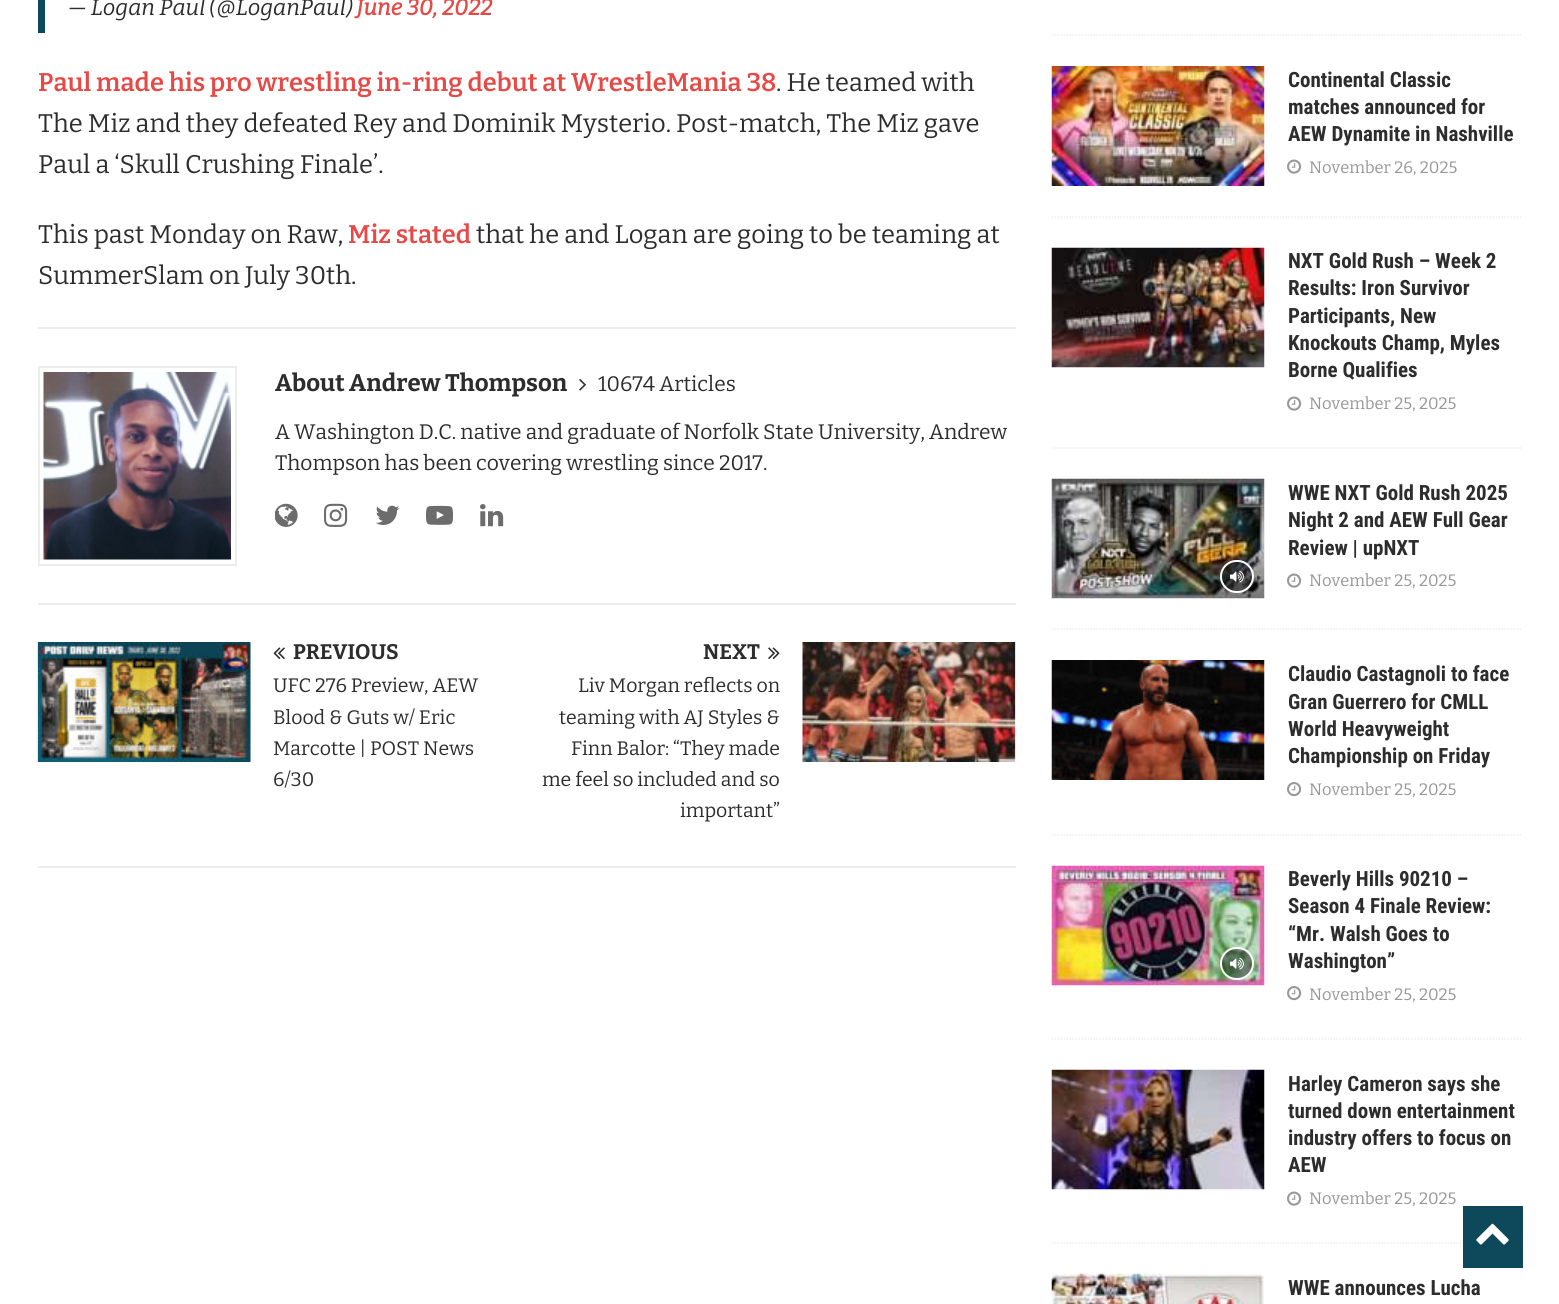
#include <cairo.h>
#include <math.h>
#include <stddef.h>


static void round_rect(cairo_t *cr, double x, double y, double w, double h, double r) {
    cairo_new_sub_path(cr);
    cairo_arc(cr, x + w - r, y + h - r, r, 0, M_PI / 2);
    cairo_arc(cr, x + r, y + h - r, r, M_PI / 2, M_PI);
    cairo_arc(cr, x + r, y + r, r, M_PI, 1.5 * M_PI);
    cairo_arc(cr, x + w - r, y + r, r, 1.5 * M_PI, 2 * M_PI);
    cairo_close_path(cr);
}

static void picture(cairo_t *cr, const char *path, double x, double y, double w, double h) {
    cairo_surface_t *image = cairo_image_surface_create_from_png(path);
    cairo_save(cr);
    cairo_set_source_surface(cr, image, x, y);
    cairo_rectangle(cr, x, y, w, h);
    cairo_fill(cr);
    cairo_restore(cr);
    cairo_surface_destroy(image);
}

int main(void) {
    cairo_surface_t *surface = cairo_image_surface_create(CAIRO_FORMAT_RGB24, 1559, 1304);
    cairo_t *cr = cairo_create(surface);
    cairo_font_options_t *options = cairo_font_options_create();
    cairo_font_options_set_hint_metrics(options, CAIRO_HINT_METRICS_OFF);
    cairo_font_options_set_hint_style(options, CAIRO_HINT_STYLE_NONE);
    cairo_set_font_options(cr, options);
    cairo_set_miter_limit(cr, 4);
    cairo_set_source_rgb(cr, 1, 1, 1);
    cairo_paint(cr);
    cairo_set_source_rgb(cr, 0.055, 0.286, 0.357);
    cairo_rectangle(cr, 38, 0, 7, 33);
    cairo_fill(cr);
    cairo_select_font_face(cr, "Bitter Thin", CAIRO_FONT_SLANT_ITALIC, CAIRO_FONT_WEIGHT_NORMAL);
    cairo_set_font_size(cr, 22.5);
    cairo_set_source_rgb(cr, 0.176, 0.176, 0.176);
    cairo_move_to(cr, 68, 15);
    cairo_show_text(cr, "— Logan Paul (@LoganPaul)");
    cairo_select_font_face(cr, "Bitter", CAIRO_FONT_SLANT_ITALIC, CAIRO_FONT_WEIGHT_BOLD);
    cairo_set_source_rgb(cr, 0.902, 0.286, 0.275);
    cairo_move_to(cr, 356, 15);
    cairo_show_text(cr, "June 30, 2022");
    cairo_select_font_face(cr, "Bitter SemiBold", CAIRO_FONT_SLANT_NORMAL, CAIRO_FONT_WEIGHT_NORMAL);
    cairo_set_font_size(cr, 25.5);
    cairo_move_to(cr, 38, 91);
    cairo_show_text(cr, "Paul made his pro wrestling in-ring debut at WrestleMania 38");
    cairo_select_font_face(cr, "Bitter", CAIRO_FONT_SLANT_NORMAL, CAIRO_FONT_WEIGHT_NORMAL);
    cairo_set_source_rgb(cr, 0.176, 0.176, 0.176);
    cairo_move_to(cr, 776, 91);
    cairo_show_text(cr, ". He teamed with");
    cairo_move_to(cr, 38, 132);
    cairo_show_text(cr, "The Miz and they defeated Rey and Dominik Mysterio. Post-match, The Miz gave");
    cairo_move_to(cr, 38, 173);
    cairo_show_text(cr, "Paul a ‘Skull Crushing Finale’.");
    cairo_move_to(cr, 38, 243);
    cairo_show_text(cr, "This past Monday on Raw,");
    cairo_select_font_face(cr, "Bitter SemiBold", CAIRO_FONT_SLANT_NORMAL, CAIRO_FONT_WEIGHT_NORMAL);
    cairo_set_source_rgb(cr, 0.902, 0.286, 0.275);
    cairo_move_to(cr, 348, 243);
    cairo_show_text(cr, "Miz stated");
    cairo_select_font_face(cr, "Bitter", CAIRO_FONT_SLANT_NORMAL, CAIRO_FONT_WEIGHT_NORMAL);
    cairo_set_source_rgb(cr, 0.176, 0.176, 0.176);
    cairo_move_to(cr, 476, 243);
    cairo_show_text(cr, "that he and Logan are going to be teaming at");
    cairo_move_to(cr, 38, 284);
    cairo_show_text(cr, "SummerSlam on July 30th.");
    cairo_set_source_rgb(cr, 0.922, 0.922, 0.922);
    cairo_rectangle(cr, 38, 327, 978, 2);
    cairo_fill(cr);
    cairo_rectangle(cr, 38, 603, 978, 2);
    cairo_fill(cr);
    cairo_rectangle(cr, 39, 367, 197, 198);
    cairo_stroke(cr);
    picture(cr, "img1.png", 43, 372, 188, 188);
    cairo_select_font_face(cr, "Bitter", CAIRO_FONT_SLANT_NORMAL, CAIRO_FONT_WEIGHT_BOLD);
    cairo_set_font_size(cr, 24);
    cairo_set_source_rgb(cr, 0.176, 0.176, 0.176);
    cairo_move_to(cr, 275, 391);
    cairo_show_text(cr, "About Andrew Thompson");
    picture(cr, "img2.png", 579, 379, 7, 12);
    cairo_select_font_face(cr, "Bitter", CAIRO_FONT_SLANT_NORMAL, CAIRO_FONT_WEIGHT_NORMAL);
    cairo_set_font_size(cr, 21);
    cairo_move_to(cr, 598, 391);
    cairo_show_text(cr, "10674 Articles");
    cairo_move_to(cr, 275, 439);
    cairo_show_text(cr, "A Washington D.C. native and graduate of Norfolk State University, Andrew");
    cairo_move_to(cr, 275, 470);
    cairo_show_text(cr, "Thompson has been covering wrestling since 2017.");
    picture(cr, "img3.png", 275, 503, 23, 24);
    picture(cr, "img4.png", 324, 503, 24, 24);
    picture(cr, "img5.png", 375, 505, 25, 20);
    picture(cr, "img6.png", 426, 505, 27, 20);
    picture(cr, "img7.png", 480, 504, 24, 23);
    cairo_set_source_rgb(cr, 0.922, 0.922, 0.922);
    cairo_rectangle(cr, 38, 866, 978, 2);
    cairo_fill(cr);
    picture(cr, "img8.png", 37, 642, 214, 120);
    picture(cr, "img9.png", 273, 647, 12, 12);
    cairo_select_font_face(cr, "Bitter", CAIRO_FONT_SLANT_NORMAL, CAIRO_FONT_WEIGHT_BOLD);
    cairo_set_source_rgb(cr, 0.176, 0.176, 0.176);
    cairo_move_to(cr, 293, 659);
    cairo_show_text(cr, "PREVIOUS");
    cairo_select_font_face(cr, "Bitter", CAIRO_FONT_SLANT_NORMAL, CAIRO_FONT_WEIGHT_NORMAL);
    cairo_set_font_size(cr, 19.5);
    cairo_move_to(cr, 273, 692);
    cairo_show_text(cr, "UFC 276 Preview, AEW");
    cairo_move_to(cr, 273, 724);
    cairo_show_text(cr, "Blood & Guts w/ Eric");
    cairo_move_to(cr, 273, 755);
    cairo_show_text(cr, "Marcotte | POST News");
    cairo_move_to(cr, 273, 786);
    cairo_show_text(cr, "6/30");
    cairo_select_font_face(cr, "Bitter", CAIRO_FONT_SLANT_NORMAL, CAIRO_FONT_WEIGHT_BOLD);
    cairo_set_font_size(cr, 21);
    cairo_move_to(cr, 703, 659);
    cairo_show_text(cr, "NEXT");
    picture(cr, "img10.png", 768, 647, 12, 12);
    picture(cr, "img11.png", 802, 642, 214, 120);
    cairo_select_font_face(cr, "Bitter", CAIRO_FONT_SLANT_NORMAL, CAIRO_FONT_WEIGHT_NORMAL);
    cairo_set_font_size(cr, 19.5);
    cairo_move_to(cr, 578, 692);
    cairo_show_text(cr, "Liv Morgan reflects on");
    cairo_move_to(cr, 559, 724);
    cairo_show_text(cr, "teaming with AJ Styles &");
    cairo_move_to(cr, 571, 755);
    cairo_show_text(cr, "Finn Balor: “They made");
    cairo_move_to(cr, 542, 786);
    cairo_show_text(cr, "me feel so included and so");
    cairo_move_to(cr, 680, 817);
    cairo_show_text(cr, "important”");
    cairo_new_path(cr);
    cairo_move_to(cr, 1051.5, 35);
    cairo_line_to(cr, 1522.5, 35);
    cairo_set_source_rgb(cr, 0.922, 0.922, 0.922);
    cairo_set_line_width(cr, 1.5);
    cairo_set_dash(cr, (double[]){1.5, 1.5}, 2, 0);
    cairo_stroke(cr);
    cairo_new_path(cr);
    cairo_move_to(cr, 1051.5, 217);
    cairo_line_to(cr, 1522.5, 217);
    cairo_stroke(cr);
    picture(cr, "img12.png", 1051, 66, 214, 120);
    cairo_select_font_face(cr, "Roboto Condensed", CAIRO_FONT_SLANT_NORMAL, CAIRO_FONT_WEIGHT_BOLD);
    cairo_set_font_size(cr, 21);
    cairo_set_source_rgb(cr, 0.176, 0.176, 0.176);
    cairo_move_to(cr, 1288, 87);
    cairo_show_text(cr, "Continental Classic");
    cairo_move_to(cr, 1288, 114);
    cairo_show_text(cr, "matches announced for");
    cairo_move_to(cr, 1288, 141);
    cairo_show_text(cr, "AEW Dynamite in Nashville");
    picture(cr, "img13.png", 1287, 159, 15, 15);
    cairo_select_font_face(cr, "Bitter", CAIRO_FONT_SLANT_NORMAL, CAIRO_FONT_WEIGHT_NORMAL);
    cairo_set_font_size(cr, 16.5);
    cairo_set_source_rgb(cr, 0.592, 0.592, 0.592);
    cairo_move_to(cr, 1309, 173);
    cairo_show_text(cr, "November 26, 2025");
    cairo_new_path(cr);
    cairo_move_to(cr, 1051.5, 448);
    cairo_line_to(cr, 1522.5, 448);
    cairo_set_source_rgb(cr, 0.922, 0.922, 0.922);
    cairo_stroke(cr);
    picture(cr, "img14.png", 1051, 247, 214, 121);
    cairo_select_font_face(cr, "Roboto Condensed", CAIRO_FONT_SLANT_NORMAL, CAIRO_FONT_WEIGHT_BOLD);
    cairo_set_font_size(cr, 21);
    cairo_set_source_rgb(cr, 0.176, 0.176, 0.176);
    cairo_move_to(cr, 1288, 268);
    cairo_show_text(cr, "NXT Gold Rush – Week 2");
    cairo_move_to(cr, 1288, 295);
    cairo_show_text(cr, "Results: Iron Survivor");
    cairo_move_to(cr, 1288, 323);
    cairo_show_text(cr, "Participants, New");
    cairo_move_to(cr, 1288, 350);
    cairo_show_text(cr, "Knockouts Champ, Myles");
    cairo_move_to(cr, 1288, 377);
    cairo_show_text(cr, "Borne Qualifies");
    picture(cr, "img13.png", 1287, 396, 15, 15);
    cairo_select_font_face(cr, "Bitter", CAIRO_FONT_SLANT_NORMAL, CAIRO_FONT_WEIGHT_NORMAL);
    cairo_set_font_size(cr, 16.5);
    cairo_set_source_rgb(cr, 0.592, 0.592, 0.592);
    cairo_move_to(cr, 1309, 409);
    cairo_show_text(cr, "November 25, 2025");
    cairo_new_path(cr);
    cairo_move_to(cr, 1051.5, 629);
    cairo_line_to(cr, 1522.5, 629);
    cairo_set_source_rgb(cr, 0.922, 0.922, 0.922);
    cairo_stroke(cr);
    picture(cr, "img15.png", 1051, 478, 214, 121);
    cairo_set_source_rgba(cr, 0, 0, 0, 0.4);
    round_rect(cr, 1221, 561, 32, 31, 15.5);
    cairo_fill_preserve(cr);
    cairo_set_source_rgb(cr, 1, 1, 1);
    cairo_set_line_width(cr, 2);
    cairo_set_dash(cr, NULL, 0, 0);
    cairo_stroke(cr);
    picture(cr, "img16.png", 1230, 570, 14, 13);
    cairo_select_font_face(cr, "Roboto Condensed", CAIRO_FONT_SLANT_NORMAL, CAIRO_FONT_WEIGHT_BOLD);
    cairo_set_font_size(cr, 21);
    cairo_set_source_rgb(cr, 0.176, 0.176, 0.176);
    cairo_move_to(cr, 1288, 500);
    cairo_show_text(cr, "WWE NXT Gold Rush 2025");
    cairo_move_to(cr, 1288, 527);
    cairo_show_text(cr, "Night 2 and AEW Full Gear");
    cairo_move_to(cr, 1288, 555);
    cairo_show_text(cr, "Review | upNXT");
    picture(cr, "img13.png", 1287, 573, 15, 15);
    cairo_select_font_face(cr, "Bitter", CAIRO_FONT_SLANT_NORMAL, CAIRO_FONT_WEIGHT_NORMAL);
    cairo_set_font_size(cr, 16.5);
    cairo_set_source_rgb(cr, 0.592, 0.592, 0.592);
    cairo_move_to(cr, 1309, 586);
    cairo_show_text(cr, "November 25, 2025");
    cairo_new_path(cr);
    cairo_move_to(cr, 1051.5, 835);
    cairo_line_to(cr, 1522.5, 835);
    cairo_set_source_rgb(cr, 0.922, 0.922, 0.922);
    cairo_set_line_width(cr, 1.5);
    cairo_set_dash(cr, (double[]){1.5, 1.5}, 2, 0);
    cairo_stroke(cr);
    picture(cr, "img17.png", 1051, 660, 214, 120);
    cairo_select_font_face(cr, "Roboto Condensed", CAIRO_FONT_SLANT_NORMAL, CAIRO_FONT_WEIGHT_BOLD);
    cairo_set_font_size(cr, 21);
    cairo_set_source_rgb(cr, 0.176, 0.176, 0.176);
    cairo_move_to(cr, 1288, 681);
    cairo_show_text(cr, "Claudio Castagnoli to face");
    cairo_move_to(cr, 1288, 709);
    cairo_show_text(cr, "Gran Guerrero for CMLL");
    cairo_move_to(cr, 1288, 736);
    cairo_show_text(cr, "World Heavyweight");
    cairo_move_to(cr, 1288, 763);
    cairo_show_text(cr, "Championship on Friday");
    picture(cr, "img18.png", 1287, 782, 15, 15);
    cairo_select_font_face(cr, "Bitter", CAIRO_FONT_SLANT_NORMAL, CAIRO_FONT_WEIGHT_NORMAL);
    cairo_set_font_size(cr, 16.5);
    cairo_set_source_rgb(cr, 0.592, 0.592, 0.592);
    cairo_move_to(cr, 1309, 795);
    cairo_show_text(cr, "November 25, 2025");
    cairo_new_path(cr);
    cairo_move_to(cr, 1051.5, 1039);
    cairo_line_to(cr, 1522.5, 1039);
    cairo_set_source_rgb(cr, 0.922, 0.922, 0.922);
    cairo_stroke(cr);
    picture(cr, "img19.png", 1051, 865, 214, 121);
    cairo_set_source_rgba(cr, 0, 0, 0, 0.4);
    round_rect(cr, 1221, 948, 32, 31, 15.5);
    cairo_fill_preserve(cr);
    cairo_set_source_rgb(cr, 1, 1, 1);
    cairo_set_line_width(cr, 2);
    cairo_set_dash(cr, NULL, 0, 0);
    cairo_stroke(cr);
    picture(cr, "img20.png", 1230, 957, 14, 13);
    cairo_select_font_face(cr, "Roboto Condensed", CAIRO_FONT_SLANT_NORMAL, CAIRO_FONT_WEIGHT_BOLD);
    cairo_set_font_size(cr, 21);
    cairo_set_source_rgb(cr, 0.176, 0.176, 0.176);
    cairo_move_to(cr, 1288, 886);
    cairo_show_text(cr, "Beverly Hills 90210 –");
    cairo_move_to(cr, 1288, 913);
    cairo_show_text(cr, "Season 4 Finale Review:");
    cairo_move_to(cr, 1288, 941);
    cairo_show_text(cr, "“Mr. Walsh Goes to");
    cairo_move_to(cr, 1288, 968);
    cairo_show_text(cr, "Washington”");
    picture(cr, "img18.png", 1287, 986, 15, 15);
    cairo_select_font_face(cr, "Bitter", CAIRO_FONT_SLANT_NORMAL, CAIRO_FONT_WEIGHT_NORMAL);
    cairo_set_font_size(cr, 16.5);
    cairo_set_source_rgb(cr, 0.592, 0.592, 0.592);
    cairo_move_to(cr, 1309, 1000);
    cairo_show_text(cr, "November 25, 2025");
    cairo_new_path(cr);
    cairo_move_to(cr, 1051.5, 1243);
    cairo_line_to(cr, 1522.5, 1243);
    cairo_set_source_rgb(cr, 0.922, 0.922, 0.922);
    cairo_set_line_width(cr, 1.5);
    cairo_set_dash(cr, (double[]){1.5, 1.5}, 2, 0);
    cairo_stroke(cr);
    picture(cr, "img21.png", 1051, 1069, 214, 121);
    cairo_select_font_face(cr, "Roboto Condensed", CAIRO_FONT_SLANT_NORMAL, CAIRO_FONT_WEIGHT_BOLD);
    cairo_set_font_size(cr, 21);
    cairo_set_source_rgb(cr, 0.176, 0.176, 0.176);
    cairo_move_to(cr, 1288, 1091);
    cairo_show_text(cr, "Harley Cameron says she");
    cairo_move_to(cr, 1288, 1118);
    cairo_show_text(cr, "turned down entertainment");
    cairo_move_to(cr, 1288, 1145);
    cairo_show_text(cr, "industry offers to focus on");
    cairo_move_to(cr, 1288, 1172);
    cairo_show_text(cr, "AEW");
    picture(cr, "img13.png", 1287, 1191, 15, 15);
    cairo_select_font_face(cr, "Bitter", CAIRO_FONT_SLANT_NORMAL, CAIRO_FONT_WEIGHT_NORMAL);
    cairo_set_font_size(cr, 16.5);
    cairo_set_source_rgb(cr, 0.592, 0.592, 0.592);
    cairo_move_to(cr, 1309, 1204);
    cairo_show_text(cr, "November 25, 2025");
    picture(cr, "img22.png", 1051, 1273, 213, 31);
    cairo_select_font_face(cr, "Roboto Condensed", CAIRO_FONT_SLANT_NORMAL, CAIRO_FONT_WEIGHT_BOLD);
    cairo_set_font_size(cr, 21);
    cairo_set_source_rgb(cr, 0.176, 0.176, 0.176);
    cairo_move_to(cr, 1288, 1295);
    cairo_show_text(cr, "WWE announces Lucha");
    cairo_set_source_rgb(cr, 0.055, 0.286, 0.357);
    cairo_rectangle(cr, 1463, 1206, 60, 62);
    cairo_fill(cr);
    picture(cr, "img23.png", 1476, 1223, 33, 22);
    cairo_surface_write_to_png(surface, "page.png");
    cairo_font_options_destroy(options);
    cairo_destroy(cr);
    cairo_surface_destroy(surface);
    return 0;
}
